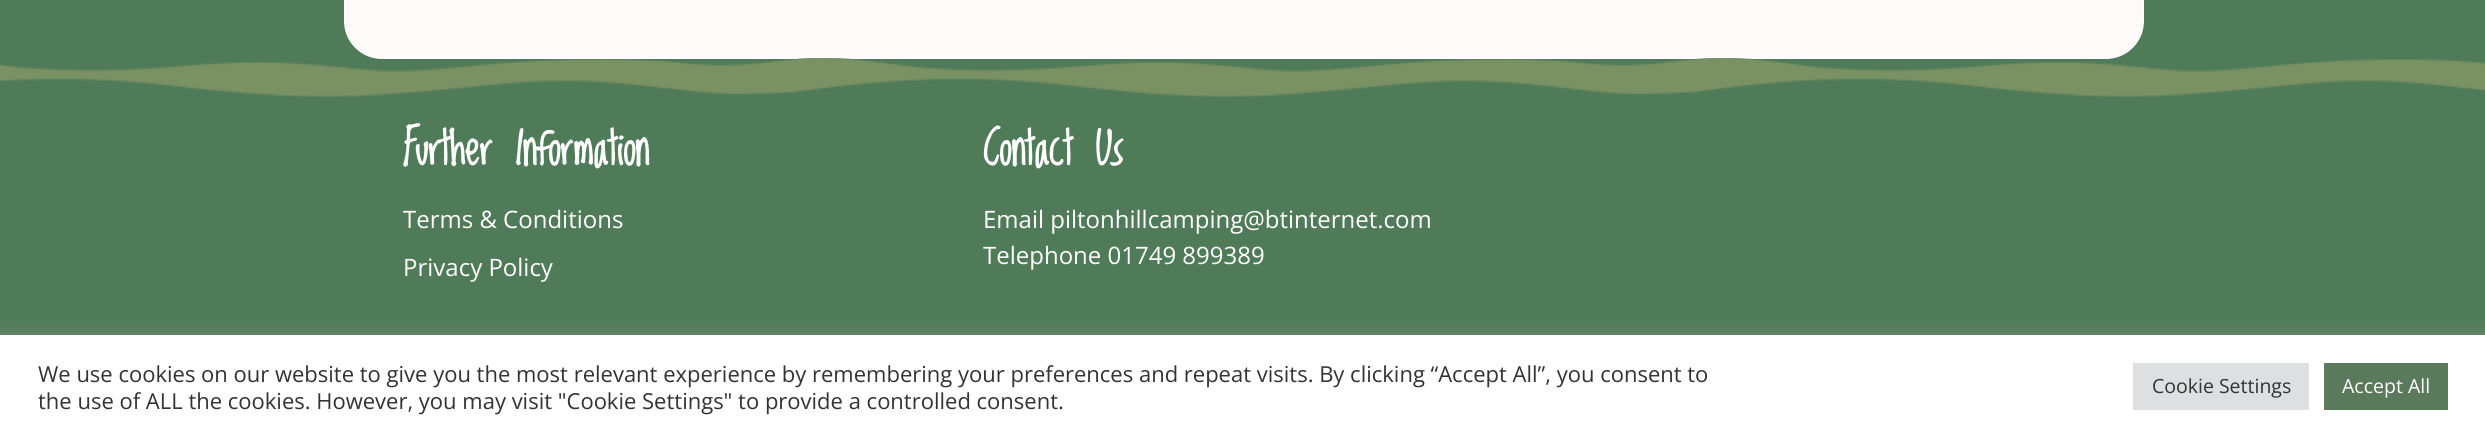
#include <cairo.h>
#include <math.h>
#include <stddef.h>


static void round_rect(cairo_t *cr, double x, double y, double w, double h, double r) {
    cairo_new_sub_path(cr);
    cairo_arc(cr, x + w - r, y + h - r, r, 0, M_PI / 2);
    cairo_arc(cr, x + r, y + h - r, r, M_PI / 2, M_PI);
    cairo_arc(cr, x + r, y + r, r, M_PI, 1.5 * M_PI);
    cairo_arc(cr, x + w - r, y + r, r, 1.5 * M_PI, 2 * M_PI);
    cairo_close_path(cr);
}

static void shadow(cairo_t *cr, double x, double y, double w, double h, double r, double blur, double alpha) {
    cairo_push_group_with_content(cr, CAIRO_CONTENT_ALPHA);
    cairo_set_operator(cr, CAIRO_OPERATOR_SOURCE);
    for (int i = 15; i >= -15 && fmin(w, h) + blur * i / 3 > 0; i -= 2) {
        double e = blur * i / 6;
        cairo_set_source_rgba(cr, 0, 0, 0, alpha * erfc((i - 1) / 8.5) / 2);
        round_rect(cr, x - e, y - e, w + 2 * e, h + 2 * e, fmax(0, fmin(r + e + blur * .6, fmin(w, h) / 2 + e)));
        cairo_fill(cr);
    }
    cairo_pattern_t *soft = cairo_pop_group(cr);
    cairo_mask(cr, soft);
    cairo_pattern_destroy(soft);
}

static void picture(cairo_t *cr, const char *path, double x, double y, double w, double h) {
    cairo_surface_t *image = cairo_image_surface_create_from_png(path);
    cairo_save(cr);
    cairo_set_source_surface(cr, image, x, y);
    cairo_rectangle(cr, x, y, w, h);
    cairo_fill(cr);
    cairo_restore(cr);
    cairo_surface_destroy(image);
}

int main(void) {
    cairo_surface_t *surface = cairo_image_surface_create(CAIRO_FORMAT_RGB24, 2485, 437);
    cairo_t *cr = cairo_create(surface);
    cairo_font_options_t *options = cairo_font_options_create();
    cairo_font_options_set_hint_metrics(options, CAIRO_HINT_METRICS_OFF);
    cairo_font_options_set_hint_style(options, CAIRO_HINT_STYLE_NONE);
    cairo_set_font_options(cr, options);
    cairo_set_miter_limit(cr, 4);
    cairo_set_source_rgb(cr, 0.314, 0.482, 0.345);
    cairo_paint(cr);
    cairo_set_source_rgb(cr, 0.992, 0.98, 0.976);
    round_rect(cr, 345, -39, 1798, 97, 37);
    cairo_fill_preserve(cr);
    cairo_set_source_rgb(cr, 1, 1, 1);
    cairo_stroke(cr);
    picture(cr, "img1.png", 0, 58, 2485, 39);
    cairo_select_font_face(cr, "Loved by the King", CAIRO_FONT_SLANT_NORMAL, CAIRO_FONT_WEIGHT_BOLD);
    cairo_set_font_size(cr, 45);
    cairo_move_to(cr, 403, 165);
    cairo_show_text(cr, "Further Information");
    cairo_select_font_face(cr, "Open Sans", CAIRO_FONT_SLANT_NORMAL, CAIRO_FONT_WEIGHT_NORMAL);
    cairo_set_font_size(cr, 24);
    cairo_move_to(cr, 403, 228);
    cairo_show_text(cr, "Terms & Conditions");
    cairo_move_to(cr, 403, 276);
    cairo_show_text(cr, "Privacy Policy");
    cairo_select_font_face(cr, "Loved by the King", CAIRO_FONT_SLANT_NORMAL, CAIRO_FONT_WEIGHT_BOLD);
    cairo_set_font_size(cr, 45);
    cairo_move_to(cr, 983, 165);
    cairo_show_text(cr, "Contact Us");
    cairo_select_font_face(cr, "Open Sans", CAIRO_FONT_SLANT_NORMAL, CAIRO_FONT_WEIGHT_NORMAL);
    cairo_set_font_size(cr, 24);
    cairo_move_to(cr, 983, 228);
    cairo_show_text(cr, "Email piltonhillcamping@btinternet.com");
    cairo_move_to(cr, 983, 264);
    cairo_show_text(cr, "Telephone 01749 899389");
    cairo_set_source_rgb(cr, 0.675, 0.671, 0.671);
    shadow(cr, 0, 333, 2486, 104, 0, 7.5, 0.3);
    cairo_set_source_rgb(cr, 1, 1, 1);
    cairo_rectangle(cr, 0, 335, 2485, 102);
    cairo_fill(cr);
    cairo_set_font_size(cr, 22);
    cairo_set_source_rgb(cr, 0.2, 0.2, 0.2);
    cairo_move_to(cr, 38, 382);
    cairo_show_text(cr, "We use cookies on our website to give you the most relevant experience by remembering your preferences and repeat visits. By clicking “Accept All”, you consent to");
    cairo_move_to(cr, 38, 409);
    cairo_show_text(cr, "the use of ALL the cookies. However, you may visit \"Cookie Settings\" to provide a controlled consent.");
    cairo_set_source_rgb(cr, 0.871, 0.875, 0.878);
    cairo_rectangle(cr, 2133, 363, 176, 47);
    cairo_fill(cr);
    cairo_set_font_size(cr, 19.5);
    cairo_set_source_rgb(cr, 0.2, 0.2, 0.2);
    cairo_move_to(cr, 2152, 393);
    cairo_show_text(cr, "Cookie Settings");
    cairo_set_source_rgb(cr, 0.353, 0.478, 0.357);
    cairo_rectangle(cr, 2324, 363, 124, 47);
    cairo_fill(cr);
    cairo_set_source_rgb(cr, 1, 1, 1);
    cairo_move_to(cr, 2342, 393);
    cairo_show_text(cr, "Accept All");
    cairo_surface_write_to_png(surface, "page.png");
    cairo_font_options_destroy(options);
    cairo_destroy(cr);
    cairo_surface_destroy(surface);
    return 0;
}
